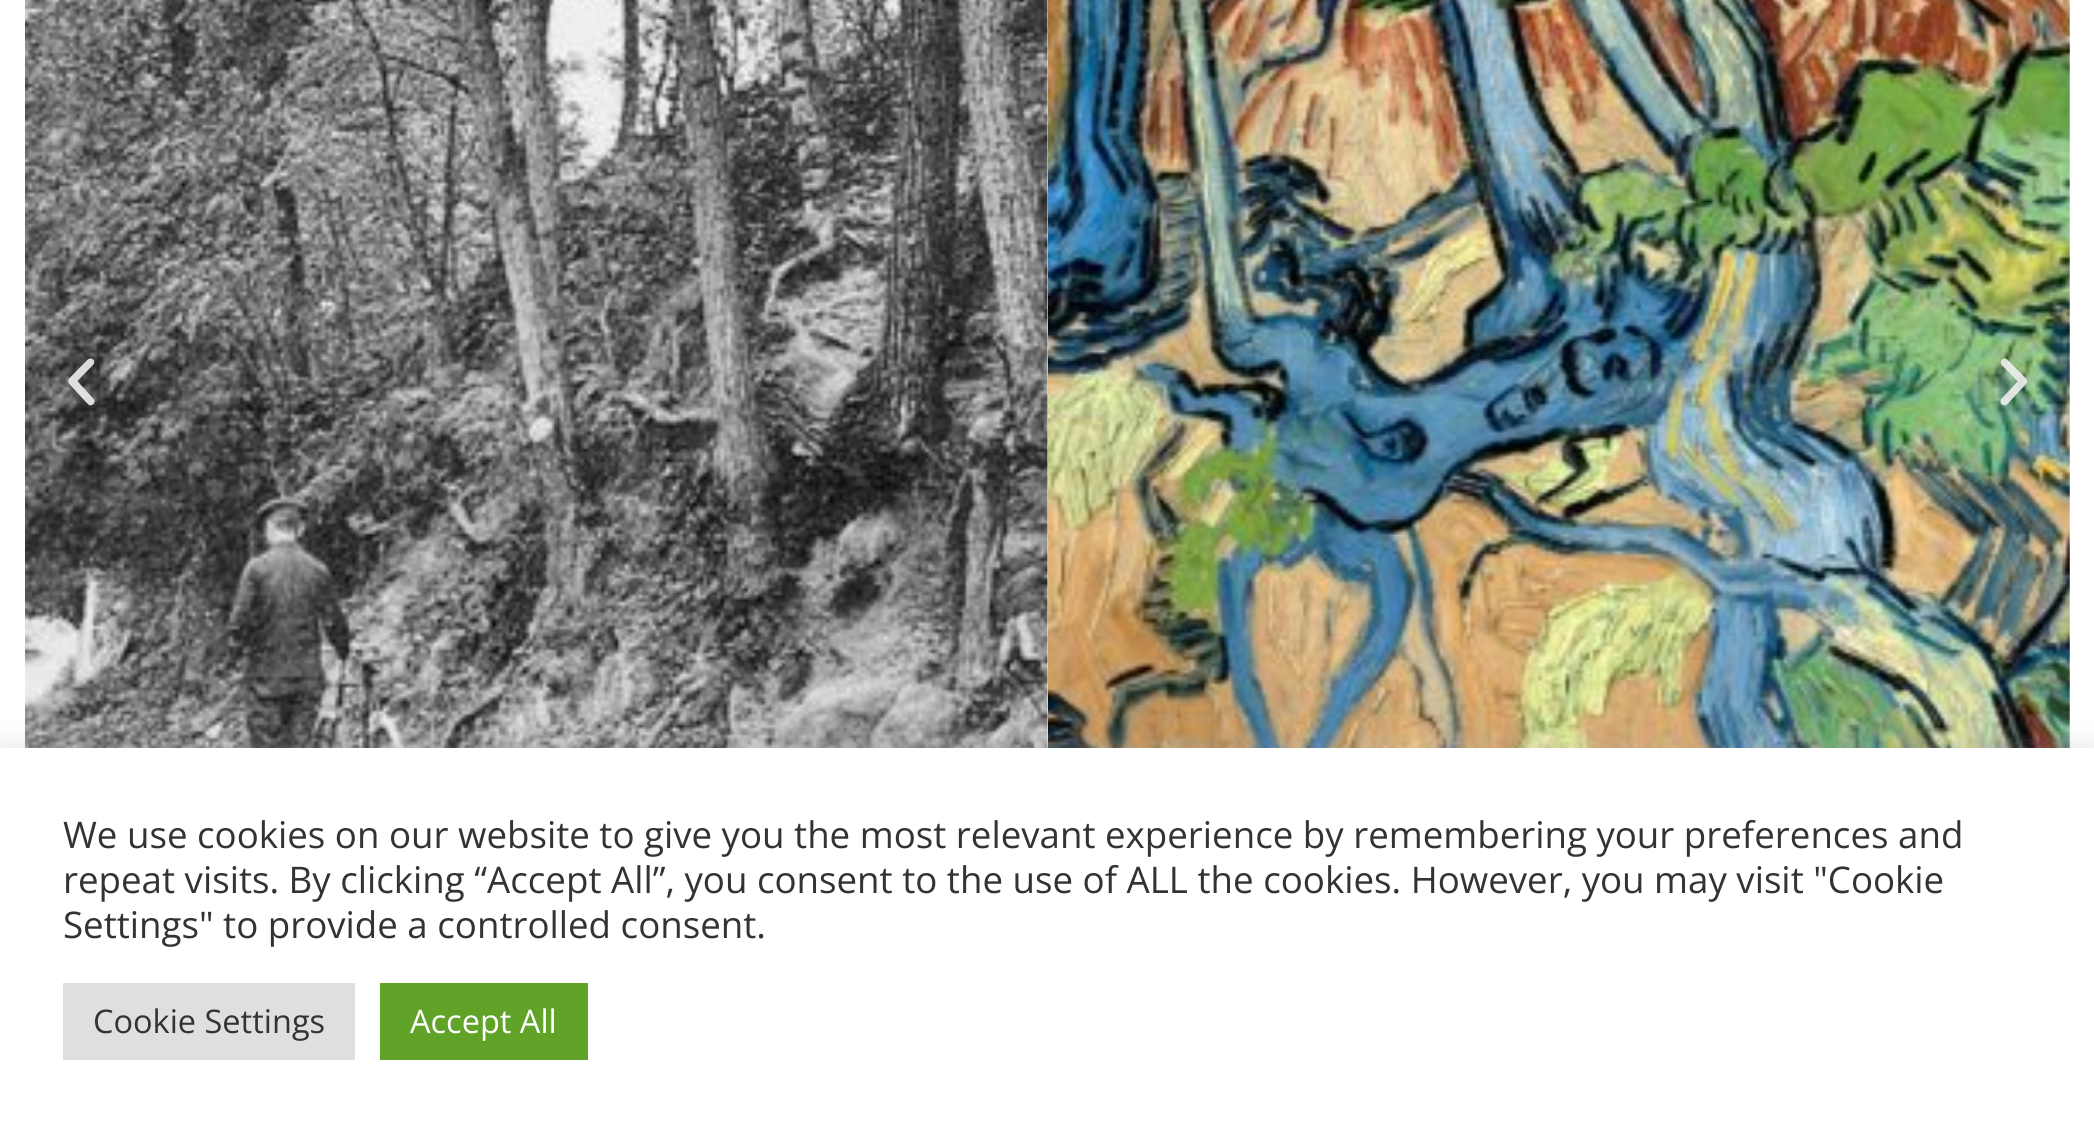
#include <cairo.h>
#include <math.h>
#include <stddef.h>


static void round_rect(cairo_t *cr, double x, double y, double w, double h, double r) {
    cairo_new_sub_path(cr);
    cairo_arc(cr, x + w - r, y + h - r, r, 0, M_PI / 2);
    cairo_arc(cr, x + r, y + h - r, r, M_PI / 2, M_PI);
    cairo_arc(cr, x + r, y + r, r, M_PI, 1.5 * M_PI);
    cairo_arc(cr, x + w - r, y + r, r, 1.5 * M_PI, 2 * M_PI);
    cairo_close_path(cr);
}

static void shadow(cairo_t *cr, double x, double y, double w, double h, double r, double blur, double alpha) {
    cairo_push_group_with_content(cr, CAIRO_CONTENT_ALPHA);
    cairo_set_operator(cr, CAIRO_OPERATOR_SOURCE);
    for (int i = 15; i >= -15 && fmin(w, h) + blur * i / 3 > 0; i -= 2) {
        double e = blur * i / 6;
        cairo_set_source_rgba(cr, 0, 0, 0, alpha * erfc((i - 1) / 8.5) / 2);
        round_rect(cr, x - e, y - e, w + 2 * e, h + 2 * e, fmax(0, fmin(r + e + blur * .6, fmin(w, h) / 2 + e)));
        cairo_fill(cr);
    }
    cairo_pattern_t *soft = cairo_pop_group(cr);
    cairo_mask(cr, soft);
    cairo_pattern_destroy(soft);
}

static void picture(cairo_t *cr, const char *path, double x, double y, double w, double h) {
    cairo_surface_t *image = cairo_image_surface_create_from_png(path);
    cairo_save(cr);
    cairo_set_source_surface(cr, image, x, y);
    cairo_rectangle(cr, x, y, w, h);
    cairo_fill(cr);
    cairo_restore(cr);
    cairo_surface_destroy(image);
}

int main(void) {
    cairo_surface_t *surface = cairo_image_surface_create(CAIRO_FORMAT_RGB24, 2094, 1134);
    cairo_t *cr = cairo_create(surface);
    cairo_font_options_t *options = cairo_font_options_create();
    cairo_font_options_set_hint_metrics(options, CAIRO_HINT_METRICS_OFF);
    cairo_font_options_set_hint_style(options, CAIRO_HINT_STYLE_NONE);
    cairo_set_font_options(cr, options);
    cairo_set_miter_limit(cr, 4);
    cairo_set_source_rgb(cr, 1, 1, 1);
    cairo_paint(cr);
    picture(cr, "img1.png", 25, 0, 1023, 748);
    picture(cr, "img2.png", 1048, 0, 1022, 748);
    picture(cr, "img3.png", 68, 358, 27, 48);
    picture(cr, "img4.png", 2000, 358, 27, 48);
    cairo_set_source_rgb(cr, 0.675, 0.671, 0.671);
    shadow(cr, 0, 745, 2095, 388, 0, 12.5, 0.3);
    cairo_set_source_rgb(cr, 1, 1, 1);
    cairo_rectangle(cr, 0, 748, 2094, 386);
    cairo_fill(cr);
    cairo_select_font_face(cr, "Open Sans", CAIRO_FONT_SLANT_NORMAL, CAIRO_FONT_WEIGHT_NORMAL);
    cairo_set_font_size(cr, 36.67);
    cairo_set_source_rgb(cr, 0.2, 0.2, 0.2);
    cairo_move_to(cr, 63, 848);
    cairo_show_text(cr, "We use cookies on our website to give you the most relevant experience by remembering your preferences and");
    cairo_move_to(cr, 63, 893);
    cairo_show_text(cr, "repeat visits. By clicking “Accept All”, you consent to the use of ALL the cookies. However, you may visit \"Cookie");
    cairo_move_to(cr, 63, 938);
    cairo_show_text(cr, "Settings\" to provide a controlled consent.");
    cairo_set_source_rgb(cr, 0.871, 0.875, 0.878);
    cairo_rectangle(cr, 63, 983, 292, 77);
    cairo_fill(cr);
    cairo_set_font_size(cr, 32.5);
    cairo_set_source_rgb(cr, 0.2, 0.2, 0.2);
    cairo_move_to(cr, 93, 1033);
    cairo_show_text(cr, "Cookie Settings");
    cairo_set_source_rgb(cr, 0.38, 0.635, 0.161);
    cairo_rectangle(cr, 380, 983, 208, 77);
    cairo_fill(cr);
    cairo_set_source_rgb(cr, 1, 1, 1);
    cairo_move_to(cr, 410, 1033);
    cairo_show_text(cr, "Accept All");
    cairo_surface_write_to_png(surface, "page.png");
    cairo_font_options_destroy(options);
    cairo_destroy(cr);
    cairo_surface_destroy(surface);
    return 0;
}
